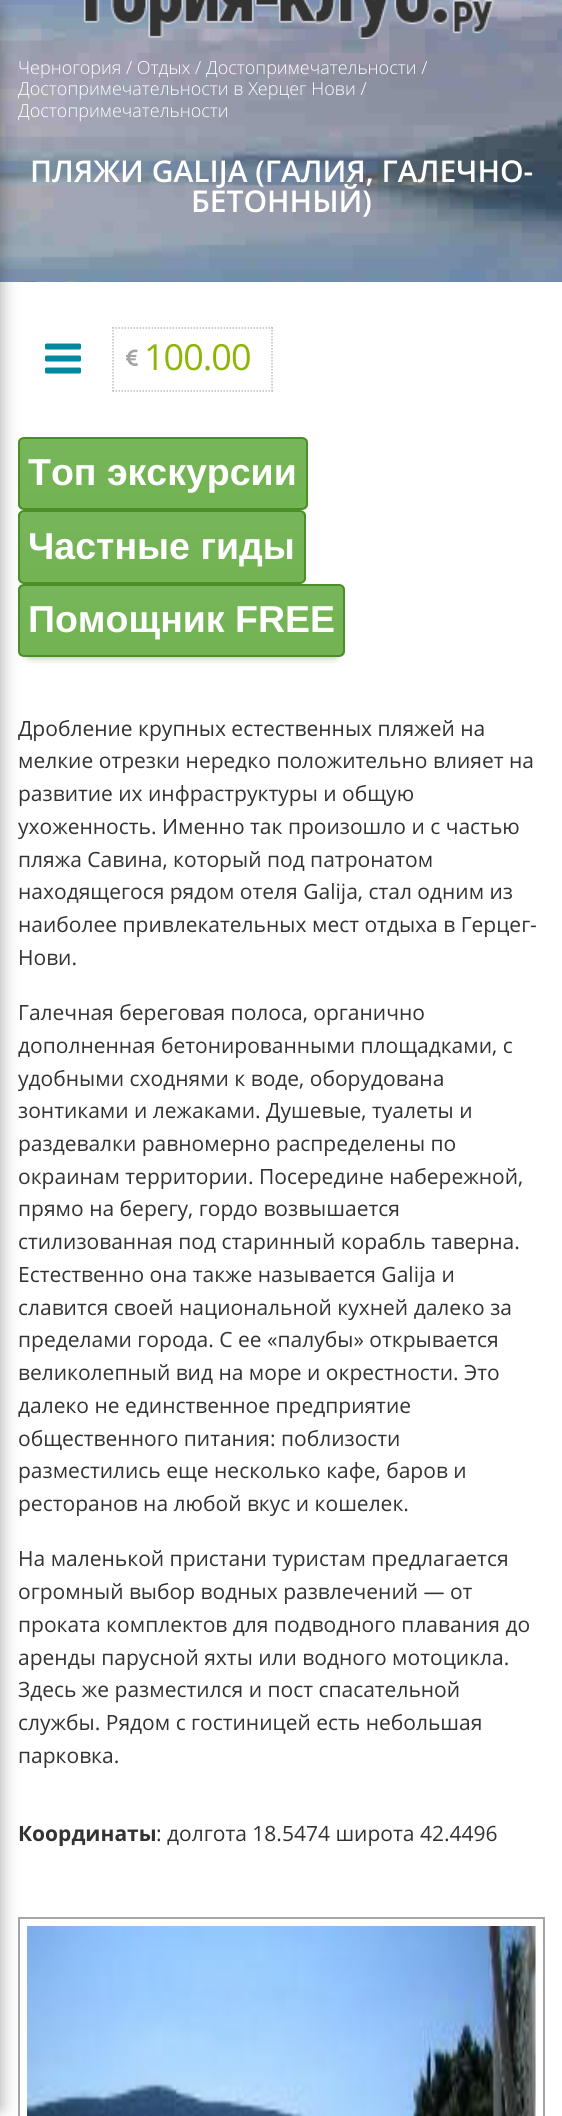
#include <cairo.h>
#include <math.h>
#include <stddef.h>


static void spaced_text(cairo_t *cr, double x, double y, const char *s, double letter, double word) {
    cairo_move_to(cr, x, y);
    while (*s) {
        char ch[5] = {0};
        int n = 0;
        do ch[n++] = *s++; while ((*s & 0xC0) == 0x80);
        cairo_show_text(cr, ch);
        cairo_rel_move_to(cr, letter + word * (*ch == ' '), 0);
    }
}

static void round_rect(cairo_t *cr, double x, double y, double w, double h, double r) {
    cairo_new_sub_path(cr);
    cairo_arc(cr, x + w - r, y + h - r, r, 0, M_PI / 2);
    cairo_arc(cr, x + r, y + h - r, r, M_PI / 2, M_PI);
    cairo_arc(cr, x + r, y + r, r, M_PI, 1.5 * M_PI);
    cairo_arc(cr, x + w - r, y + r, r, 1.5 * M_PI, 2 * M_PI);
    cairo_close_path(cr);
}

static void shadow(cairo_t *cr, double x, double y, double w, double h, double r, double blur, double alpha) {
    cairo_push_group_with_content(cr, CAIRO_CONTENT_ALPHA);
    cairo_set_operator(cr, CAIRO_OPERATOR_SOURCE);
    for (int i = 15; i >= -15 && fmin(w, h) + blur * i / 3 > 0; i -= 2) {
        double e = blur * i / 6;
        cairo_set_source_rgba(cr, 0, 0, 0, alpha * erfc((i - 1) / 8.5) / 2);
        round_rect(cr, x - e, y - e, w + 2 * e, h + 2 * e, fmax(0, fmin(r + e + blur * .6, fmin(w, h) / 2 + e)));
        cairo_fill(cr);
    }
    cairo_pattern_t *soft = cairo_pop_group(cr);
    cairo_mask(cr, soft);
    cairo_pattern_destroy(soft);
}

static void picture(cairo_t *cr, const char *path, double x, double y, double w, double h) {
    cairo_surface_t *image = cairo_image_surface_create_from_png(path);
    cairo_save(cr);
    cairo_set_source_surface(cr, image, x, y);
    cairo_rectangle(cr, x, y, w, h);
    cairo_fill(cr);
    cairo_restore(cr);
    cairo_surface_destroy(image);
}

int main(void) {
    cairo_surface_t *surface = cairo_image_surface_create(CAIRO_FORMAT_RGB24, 562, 2116);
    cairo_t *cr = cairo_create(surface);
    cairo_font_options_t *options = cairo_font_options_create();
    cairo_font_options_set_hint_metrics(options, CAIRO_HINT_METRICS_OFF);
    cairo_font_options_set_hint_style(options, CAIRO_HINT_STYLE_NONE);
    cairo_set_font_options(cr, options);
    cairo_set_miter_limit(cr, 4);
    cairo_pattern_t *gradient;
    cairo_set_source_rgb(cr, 1, 1, 1);
    cairo_paint(cr);
    picture(cr, "img1.png", 0, 0, 562, 282);
    picture(cr, "img2.png", 83, 0, 411, 39);
    cairo_select_font_face(cr, "Open Sans Light", CAIRO_FONT_SLANT_NORMAL, CAIRO_FONT_WEIGHT_NORMAL);
    cairo_set_font_size(cr, 18);
    cairo_set_source_rgb(cr, 1, 1, 1);
    cairo_move_to(cr, 18, 74);
    cairo_show_text(cr, "Черногория / Отдых / Достопримечательности /");
    cairo_move_to(cr, 18, 95);
    cairo_show_text(cr, "Достопримечательности в Херцег Нови /");
    cairo_move_to(cr, 18, 117);
    cairo_show_text(cr, "Достопримечательности");
    cairo_select_font_face(cr, "Open Sans SemiBold", CAIRO_FONT_SLANT_NORMAL, CAIRO_FONT_WEIGHT_NORMAL);
    cairo_set_font_size(cr, 30);
    cairo_move_to(cr, 30, 182);
    cairo_show_text(cr, "ПЛЯЖИ GALIJA (ГАЛИЯ, ГАЛЕЧНО-");
    cairo_move_to(cr, 191, 212);
    cairo_show_text(cr, "БЕТОННЫЙ)");
    picture(cr, "img3.png", 45, 343, 36, 31);
    cairo_new_path(cr);
    cairo_move_to(cr, 112.5, 328);
    cairo_line_to(cr, 273, 328);
    cairo_set_source_rgb(cr, 0.745, 0.745, 0.745);
    cairo_set_line_width(cr, 1.5);
    cairo_set_dash(cr, (double[]){1.5, 1.5}, 2, 0);
    cairo_stroke(cr);
    cairo_new_path(cr);
    cairo_move_to(cr, 272, 327);
    cairo_line_to(cr, 272, 391.5);
    cairo_stroke(cr);
    cairo_new_path(cr);
    cairo_move_to(cr, 112.5, 391);
    cairo_line_to(cr, 273, 391);
    cairo_stroke(cr);
    cairo_new_path(cr);
    cairo_move_to(cr, 113, 327);
    cairo_line_to(cr, 113, 391.5);
    cairo_stroke(cr);
    picture(cr, "img4.png", 126, 349, 12, 17);
    cairo_select_font_face(cr, "Open Sans", CAIRO_FONT_SLANT_NORMAL, CAIRO_FONT_WEIGHT_NORMAL);
    cairo_set_font_size(cr, 36);
    cairo_set_source_rgb(cr, 0.553, 0.71, 0.012);
    spaced_text(cr, 144, 370, "100.00", -1, 0);
    cairo_set_source_rgb(cr, 0.243, 0.451, 0.153);
    shadow(cr, 29, 455, 268, 52, 0, 5, 1);
    cairo_save(cr);
    round_rect(cr, 18, 437, 290, 73, 6);
    cairo_clip(cr);
    gradient = cairo_pattern_create_linear(163, 438, 163, 509);
    cairo_pattern_add_color_stop_rgba(gradient, 0.05, 0.467, 0.71, 0.353, 1);
    cairo_pattern_add_color_stop_rgba(gradient, 1, 0.447, 0.702, 0.322, 1);
    cairo_set_source(cr, gradient);
    cairo_pattern_destroy(gradient);
    cairo_rectangle(cr, 18, 438, 290, 71);
    cairo_fill(cr);
    cairo_restore(cr);
    round_rect(cr, 19, 438, 288, 71, 5);
    cairo_set_source_rgb(cr, 0.294, 0.561, 0.161);
    cairo_set_line_width(cr, 2);
    cairo_set_dash(cr, NULL, 0, 0);
    cairo_stroke(cr);
    cairo_set_source_rgb(cr, 0.243, 0.451, 0.153);
    shadow(cr, 29, 528, 267, 53, 0, 5, 1);
    cairo_save(cr);
    round_rect(cr, 18, 510, 288, 74, 6);
    cairo_clip(cr);
    gradient = cairo_pattern_create_linear(162, 512, 162, 582);
    cairo_pattern_add_color_stop_rgba(gradient, 0.05, 0.467, 0.71, 0.353, 1);
    cairo_pattern_add_color_stop_rgba(gradient, 1, 0.447, 0.702, 0.322, 1);
    cairo_set_source(cr, gradient);
    cairo_pattern_destroy(gradient);
    cairo_rectangle(cr, 18, 512, 288, 70);
    cairo_fill(cr);
    cairo_restore(cr);
    round_rect(cr, 19, 511, 286, 72, 5);
    cairo_set_source_rgb(cr, 0.294, 0.561, 0.161);
    cairo_stroke(cr);
    cairo_set_source_rgb(cr, 0.243, 0.451, 0.153);
    shadow(cr, 29, 602, 306, 52, 0, 5, 1);
    cairo_save(cr);
    round_rect(cr, 18, 584, 327, 73, 6);
    cairo_clip(cr);
    gradient = cairo_pattern_create_linear(182, 585, 182, 656);
    cairo_pattern_add_color_stop_rgba(gradient, 0.05, 0.467, 0.71, 0.353, 1);
    cairo_pattern_add_color_stop_rgba(gradient, 1, 0.447, 0.702, 0.322, 1);
    cairo_set_source(cr, gradient);
    cairo_pattern_destroy(gradient);
    cairo_rectangle(cr, 18, 585, 327, 71);
    cairo_fill(cr);
    cairo_restore(cr);
    round_rect(cr, 19, 585, 325, 71, 5);
    cairo_set_source_rgb(cr, 0.294, 0.561, 0.161);
    cairo_stroke(cr);
    cairo_rectangle(cr, 19, 1918, 525, 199);
    cairo_set_source_rgb(cr, 0.647, 0.647, 0.647);
    cairo_stroke(cr);
    picture(cr, "img5.png", 27, 1926, 509, 190);
    cairo_set_source_rgb(cr, 0.2, 0.2, 0.2);
    shadow(cr, -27, 9, 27, 2099, 0, 9, 0.45);
    cairo_select_font_face(cr, "Liberation Sans", CAIRO_FONT_SLANT_NORMAL, CAIRO_FONT_WEIGHT_BOLD);
    cairo_set_font_size(cr, 37.5);
    cairo_set_source_rgb(cr, 1, 1, 1);
    cairo_move_to(cr, 28, 485);
    cairo_show_text(cr, "Топ экскурсии");
    cairo_move_to(cr, 28, 559);
    cairo_show_text(cr, "Частные гиды");
    cairo_move_to(cr, 28, 632);
    cairo_show_text(cr, "Помощник FREE");
    cairo_select_font_face(cr, "Open Sans", CAIRO_FONT_SLANT_NORMAL, CAIRO_FONT_WEIGHT_NORMAL);
    cairo_set_font_size(cr, 21);
    cairo_set_source_rgb(cr, 0.2, 0.2, 0.2);
    cairo_move_to(cr, 18, 736);
    cairo_show_text(cr, "Дробление крупных естественных пляжей на");
    cairo_move_to(cr, 18, 768);
    cairo_show_text(cr, "мелкие отрезки нередко положительно влияет на");
    cairo_move_to(cr, 18, 801);
    cairo_show_text(cr, "развитие их инфраструктуры и общую");
    cairo_move_to(cr, 18, 834);
    cairo_show_text(cr, "ухоженность. Именно так произошло и с частью");
    cairo_move_to(cr, 18, 867);
    cairo_show_text(cr, "пляжа Савина, который под патронатом");
    cairo_move_to(cr, 18, 899);
    cairo_show_text(cr, "находящегося рядом отеля Galija, стал одним из");
    cairo_move_to(cr, 18, 932);
    cairo_show_text(cr, "наиболее привлекательных мест отдыха в Герцег-");
    cairo_move_to(cr, 18, 965);
    cairo_show_text(cr, "Нови.");
    cairo_move_to(cr, 18, 1020);
    cairo_show_text(cr, "Галечная береговая полоса, органично");
    cairo_move_to(cr, 18, 1053);
    cairo_show_text(cr, "дополненная бетонированными площадками, с");
    cairo_move_to(cr, 18, 1086);
    cairo_show_text(cr, "удобными сходнями к воде, оборудована");
    cairo_move_to(cr, 18, 1118);
    cairo_show_text(cr, "зонтиками и лежаками. Душевые, туалеты и");
    cairo_move_to(cr, 18, 1151);
    cairo_show_text(cr, "раздевалки равномерно распределены по");
    cairo_move_to(cr, 18, 1184);
    cairo_show_text(cr, "окраинам территории. Посередине набережной,");
    cairo_move_to(cr, 18, 1216);
    cairo_show_text(cr, "прямо на берегу, гордо возвышается");
    cairo_move_to(cr, 18, 1249);
    cairo_show_text(cr, "стилизованная под старинный корабль таверна.");
    cairo_move_to(cr, 18, 1282);
    cairo_show_text(cr, "Естественно она также называется Galija и");
    cairo_move_to(cr, 18, 1315);
    cairo_show_text(cr, "славится своей национальной кухней далеко за");
    cairo_move_to(cr, 18, 1347);
    cairo_show_text(cr, "пределами города. С ее «палубы» открывается");
    cairo_move_to(cr, 18, 1380);
    cairo_show_text(cr, "великолепный вид на море и окрестности. Это");
    cairo_move_to(cr, 18, 1413);
    cairo_show_text(cr, "далеко не единственное предприятие");
    cairo_move_to(cr, 18, 1446);
    cairo_show_text(cr, "общественного питания: поблизости");
    cairo_move_to(cr, 18, 1478);
    cairo_show_text(cr, "разместились еще несколько кафе, баров и");
    cairo_move_to(cr, 18, 1511);
    cairo_show_text(cr, "ресторанов на любой вкус и кошелек.");
    cairo_move_to(cr, 18, 1566);
    cairo_show_text(cr, "На маленькой пристани туристам предлагается");
    cairo_move_to(cr, 18, 1599);
    cairo_show_text(cr, "огромный выбор водных развлечений — от");
    cairo_move_to(cr, 18, 1632);
    cairo_show_text(cr, "проката комплектов для подводного плавания до");
    cairo_move_to(cr, 18, 1665);
    cairo_show_text(cr, "аренды парусной яхты или водного мотоцикла.");
    cairo_move_to(cr, 18, 1697);
    cairo_show_text(cr, "Здесь же разместился и пост спасательной");
    cairo_move_to(cr, 18, 1730);
    cairo_show_text(cr, "службы. Рядом с гостиницей есть небольшая");
    cairo_move_to(cr, 18, 1763);
    cairo_show_text(cr, "парковка.");
    cairo_select_font_face(cr, "Open Sans", CAIRO_FONT_SLANT_NORMAL, CAIRO_FONT_WEIGHT_BOLD);
    cairo_move_to(cr, 18, 1841);
    cairo_show_text(cr, "Координаты");
    cairo_select_font_face(cr, "Open Sans", CAIRO_FONT_SLANT_NORMAL, CAIRO_FONT_WEIGHT_NORMAL);
    cairo_move_to(cr, 156, 1841);
    cairo_show_text(cr, ": долгота 18.5474 широта 42.4496");
    cairo_surface_write_to_png(surface, "page.png");
    cairo_font_options_destroy(options);
    cairo_destroy(cr);
    cairo_surface_destroy(surface);
    return 0;
}
